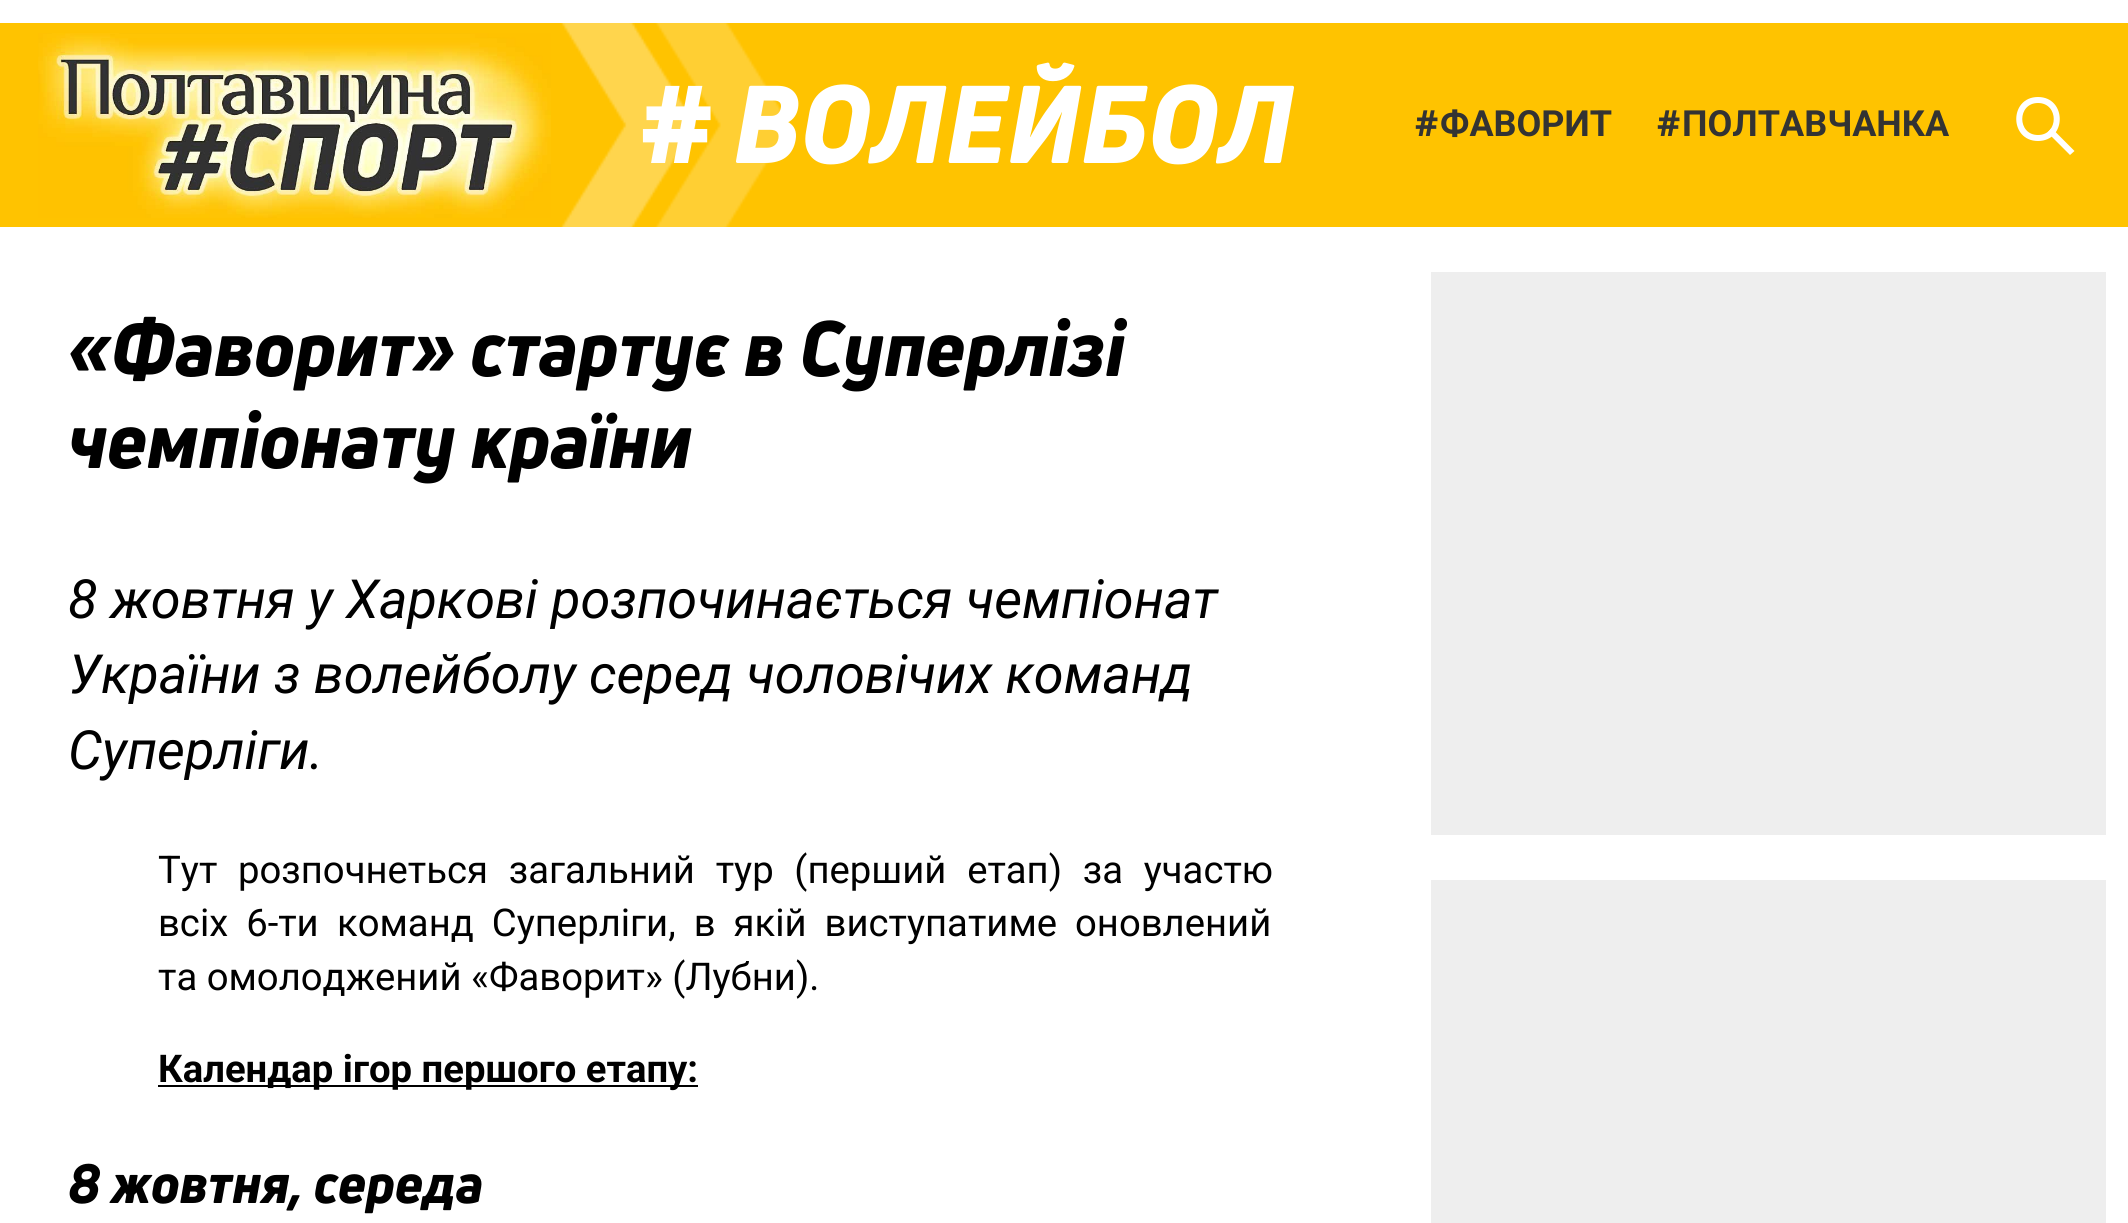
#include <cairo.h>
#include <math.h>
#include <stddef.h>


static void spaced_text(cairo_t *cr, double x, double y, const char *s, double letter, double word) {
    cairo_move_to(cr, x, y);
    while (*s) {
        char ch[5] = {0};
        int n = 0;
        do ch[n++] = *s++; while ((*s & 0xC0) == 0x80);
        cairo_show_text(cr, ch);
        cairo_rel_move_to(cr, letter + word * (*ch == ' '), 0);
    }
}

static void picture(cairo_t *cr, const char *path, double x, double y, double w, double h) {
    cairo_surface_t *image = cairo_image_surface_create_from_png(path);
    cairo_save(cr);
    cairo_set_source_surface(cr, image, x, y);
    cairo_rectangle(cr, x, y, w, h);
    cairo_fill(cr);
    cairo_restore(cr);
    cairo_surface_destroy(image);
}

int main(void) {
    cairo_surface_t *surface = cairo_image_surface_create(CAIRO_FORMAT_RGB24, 2128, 1223);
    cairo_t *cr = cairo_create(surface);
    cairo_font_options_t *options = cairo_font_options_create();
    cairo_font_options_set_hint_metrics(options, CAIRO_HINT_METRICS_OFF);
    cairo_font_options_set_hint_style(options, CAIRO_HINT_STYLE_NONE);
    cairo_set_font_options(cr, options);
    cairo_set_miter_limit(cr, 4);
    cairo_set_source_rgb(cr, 1, 1, 1);
    cairo_paint(cr);
    cairo_set_source_rgb(cr, 1, 0.765, 0);
    cairo_rectangle(cr, 0, 23, 2128, 204);
    cairo_fill(cr);
    picture(cr, "img1.png", 561, 23, 229, 204);
    picture(cr, "img2.png", 38, 33, 513, 185);
    cairo_select_font_face(cr, "Noto Sans Black", CAIRO_FONT_SLANT_NORMAL, CAIRO_FONT_WEIGHT_NORMAL);
    cairo_set_font_size(cr, 108);
    cairo_set_source_rgb(cr, 1, 1, 1);
    cairo_move_to(cr, 641, 163);
    cairo_show_text(cr, "#");
    cairo_select_font_face(cr, "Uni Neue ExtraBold", CAIRO_FONT_SLANT_ITALIC, CAIRO_FONT_WEIGHT_NORMAL);
    cairo_move_to(cr, 733, 163);
    cairo_show_text(cr, "ВОЛЕЙБОЛ");
    cairo_select_font_face(cr, "Noto Sans", CAIRO_FONT_SLANT_NORMAL, CAIRO_FONT_WEIGHT_BOLD);
    cairo_set_font_size(cr, 36);
    cairo_set_source_rgb(cr, 0.2, 0.2, 0.2);
    cairo_move_to(cr, 1415, 136);
    cairo_show_text(cr, "#");
    cairo_select_font_face(cr, "Roboto", CAIRO_FONT_SLANT_NORMAL, CAIRO_FONT_WEIGHT_BOLD);
    cairo_move_to(cr, 1440, 136);
    cairo_show_text(cr, "ФАВОРИТ");
    cairo_select_font_face(cr, "Noto Sans", CAIRO_FONT_SLANT_NORMAL, CAIRO_FONT_WEIGHT_BOLD);
    cairo_move_to(cr, 1657, 136);
    cairo_show_text(cr, "#");
    cairo_select_font_face(cr, "Roboto", CAIRO_FONT_SLANT_NORMAL, CAIRO_FONT_WEIGHT_BOLD);
    cairo_move_to(cr, 1682, 136);
    cairo_show_text(cr, "ПОЛТАВЧАНКА");
    cairo_set_source_rgb(cr, 1, 1, 1);
    cairo_new_path(cr);
    cairo_move_to(cr, 2038, 141);
    cairo_curve_to(cr, 2009, 141, 2009, 97, 2038, 97);
    cairo_curve_to(cr, 2067, 97, 2067, 141, 2038, 141);
    cairo_close_path(cr);
    cairo_move_to(cr, 2038, 103);
    cairo_curve_to(cr, 2017, 103, 2017, 135, 2038, 135);
    cairo_curve_to(cr, 2059, 135, 2059, 103, 2038, 103);
    cairo_close_path(cr);
    cairo_fill(cr);
    cairo_new_path(cr);
    cairo_move_to(cr, 2070, 155);
    cairo_line_to(cr, 2047.5, 132.5);
    cairo_line_to(cr, 2051.5, 128);
    cairo_line_to(cr, 2074.5, 151);
    cairo_close_path(cr);
    cairo_fill(cr);
    cairo_select_font_face(cr, "Uni Neue ExtraBold", CAIRO_FONT_SLANT_ITALIC, CAIRO_FONT_WEIGHT_NORMAL);
    cairo_set_font_size(cr, 76.5);
    cairo_set_source_rgb(cr, 0, 0, 0);
    cairo_move_to(cr, 68, 376);
    cairo_show_text(cr, "«Фаворит» стартує в Суперлізі");
    cairo_move_to(cr, 68, 468);
    cairo_show_text(cr, "чемпіонату країни");
    cairo_select_font_face(cr, "Roboto", CAIRO_FONT_SLANT_ITALIC, CAIRO_FONT_WEIGHT_NORMAL);
    cairo_set_font_size(cr, 54);
    cairo_move_to(cr, 68, 618);
    cairo_show_text(cr, "8 жовтня у Харкові розпочинається чемпіонат");
    cairo_move_to(cr, 68, 693);
    cairo_show_text(cr, "України з волейболу серед чоловічих команд");
    cairo_move_to(cr, 68, 769);
    cairo_show_text(cr, "Суперліги.");
    cairo_select_font_face(cr, "Roboto", CAIRO_FONT_SLANT_NORMAL, CAIRO_FONT_WEIGHT_NORMAL);
    cairo_set_font_size(cr, 38.25);
    spaced_text(cr, 158, 883, "Тут розпочнеться загальний тур (перший етап) за участю", 0, 11.25);
    spaced_text(cr, 158, 936, "всіх 6-ти", 0, 8.5);
    spaced_text(cr, 337, 936, "команд Суперліги, в якій виступатиме оновлений", 0, 8.5);
    cairo_move_to(cr, 158, 990);
    cairo_show_text(cr, "та омолоджений «Фаворит» (Лубни).");
    cairo_rectangle(cr, 158, 1085, 540, 2);
    cairo_fill(cr);
    cairo_select_font_face(cr, "Roboto", CAIRO_FONT_SLANT_NORMAL, CAIRO_FONT_WEIGHT_BOLD);
    cairo_move_to(cr, 158, 1082);
    cairo_show_text(cr, "Календар ігор першого етапу:");
    cairo_select_font_face(cr, "Uni Neue ExtraBold", CAIRO_FONT_SLANT_ITALIC, CAIRO_FONT_WEIGHT_NORMAL);
    cairo_set_font_size(cr, 54);
    cairo_move_to(cr, 68, 1203);
    cairo_show_text(cr, "8 жовтня, середа");
    cairo_set_source_rgb(cr, 0.933, 0.933, 0.933);
    cairo_rectangle(cr, 1431, 272, 675, 563);
    cairo_fill(cr);
    cairo_rectangle(cr, 1431, 880, 675, 343);
    cairo_fill(cr);
    cairo_surface_write_to_png(surface, "page.png");
    cairo_font_options_destroy(options);
    cairo_destroy(cr);
    cairo_surface_destroy(surface);
    return 0;
}
